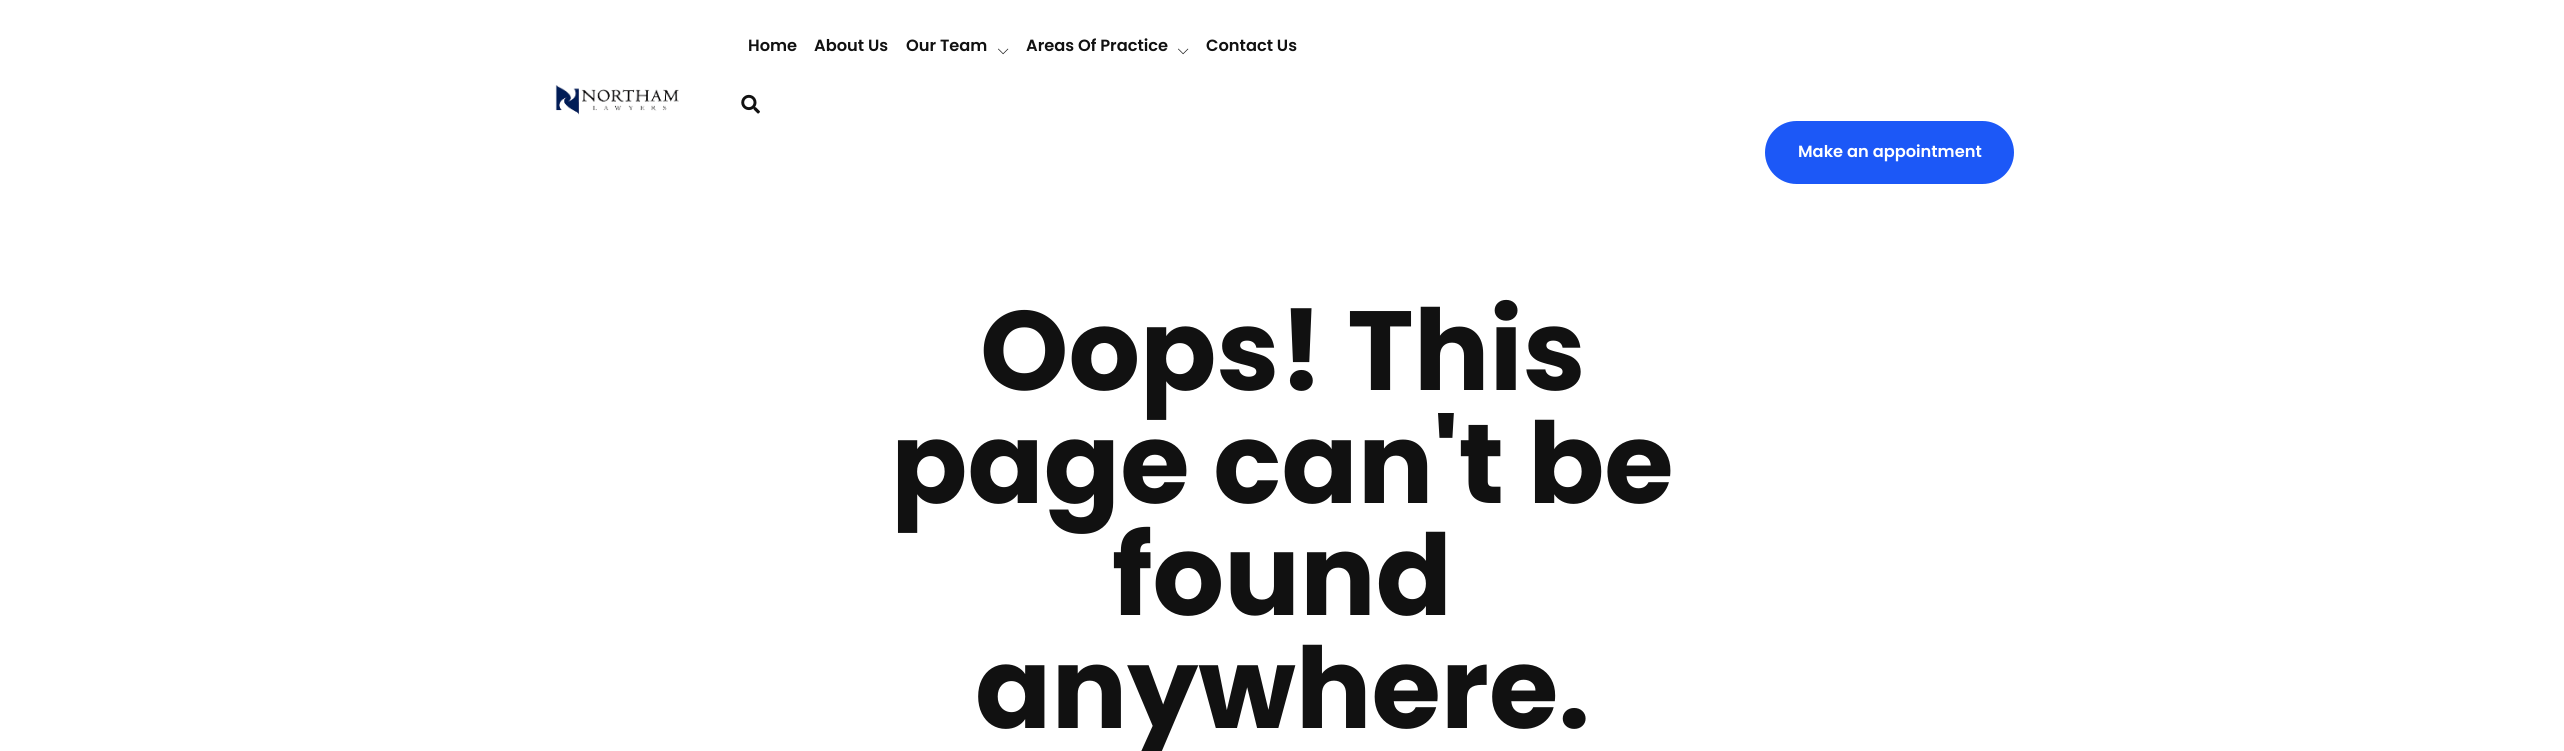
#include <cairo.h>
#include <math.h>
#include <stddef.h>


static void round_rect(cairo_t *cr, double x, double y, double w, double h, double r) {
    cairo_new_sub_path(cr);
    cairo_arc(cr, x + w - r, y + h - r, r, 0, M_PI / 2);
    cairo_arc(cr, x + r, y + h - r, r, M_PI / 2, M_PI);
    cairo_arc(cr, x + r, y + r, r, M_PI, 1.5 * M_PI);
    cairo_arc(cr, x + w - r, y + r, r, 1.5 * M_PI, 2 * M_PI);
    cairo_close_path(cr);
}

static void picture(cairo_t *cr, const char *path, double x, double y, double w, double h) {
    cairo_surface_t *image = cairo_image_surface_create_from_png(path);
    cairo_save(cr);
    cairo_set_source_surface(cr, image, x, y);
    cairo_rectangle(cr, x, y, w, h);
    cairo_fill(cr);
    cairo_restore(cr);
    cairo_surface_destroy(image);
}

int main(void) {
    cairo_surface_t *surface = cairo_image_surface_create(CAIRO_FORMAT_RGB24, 2564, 751);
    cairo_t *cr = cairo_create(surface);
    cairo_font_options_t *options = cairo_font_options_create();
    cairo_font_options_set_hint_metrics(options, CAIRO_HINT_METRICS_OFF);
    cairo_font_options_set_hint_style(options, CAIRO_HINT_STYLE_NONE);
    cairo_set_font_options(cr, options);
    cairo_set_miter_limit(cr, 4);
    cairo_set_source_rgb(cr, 1, 1, 1);
    cairo_paint(cr);
    picture(cr, "img1.png", 555, 85, 124, 30);
    cairo_select_font_face(cr, "Poppins SemiBold", CAIRO_FONT_SLANT_NORMAL, CAIRO_FONT_WEIGHT_NORMAL);
    cairo_set_font_size(cr, 16.25);
    cairo_set_source_rgb(cr, 0.067, 0.067, 0.067);
    cairo_move_to(cr, 748, 51);
    cairo_show_text(cr, "Home");
    cairo_move_to(cr, 814, 51);
    cairo_show_text(cr, "About Us");
    cairo_move_to(cr, 906, 51);
    cairo_show_text(cr, "Our Team");
    picture(cr, "img2.png", 998, 48, 11, 7);
    cairo_move_to(cr, 1026, 51);
    cairo_show_text(cr, "Areas Of Practice");
    picture(cr, "img2.png", 1178, 48, 11, 7);
    cairo_move_to(cr, 1206, 51);
    cairo_show_text(cr, "Contact Us");
    picture(cr, "img3.png", 741, 94, 19, 20);
    cairo_set_source_rgb(cr, 0.11, 0.345, 0.965);
    round_rect(cr, 1766.5, 122.5, 246, 60, 30);
    cairo_fill_preserve(cr);
    cairo_set_line_width(cr, 3);
    cairo_stroke(cr);
    cairo_set_source_rgb(cr, 1, 1, 1);
    cairo_move_to(cr, 1798, 157);
    cairo_show_text(cr, "Make an appointment");
    cairo_select_font_face(cr, "Poppins", CAIRO_FONT_SLANT_NORMAL, CAIRO_FONT_WEIGHT_BOLD);
    cairo_set_font_size(cr, 112.5);
    cairo_set_source_rgb(cr, 0.067, 0.067, 0.067);
    cairo_move_to(cr, 980, 390);
    cairo_show_text(cr, "Oops! This");
    cairo_move_to(cr, 891, 503);
    cairo_show_text(cr, "page can't be");
    cairo_move_to(cr, 1112, 615);
    cairo_show_text(cr, "found");
    cairo_move_to(cr, 975, 728);
    cairo_show_text(cr, "anywhere.");
    cairo_surface_write_to_png(surface, "page.png");
    cairo_font_options_destroy(options);
    cairo_destroy(cr);
    cairo_surface_destroy(surface);
    return 0;
}
